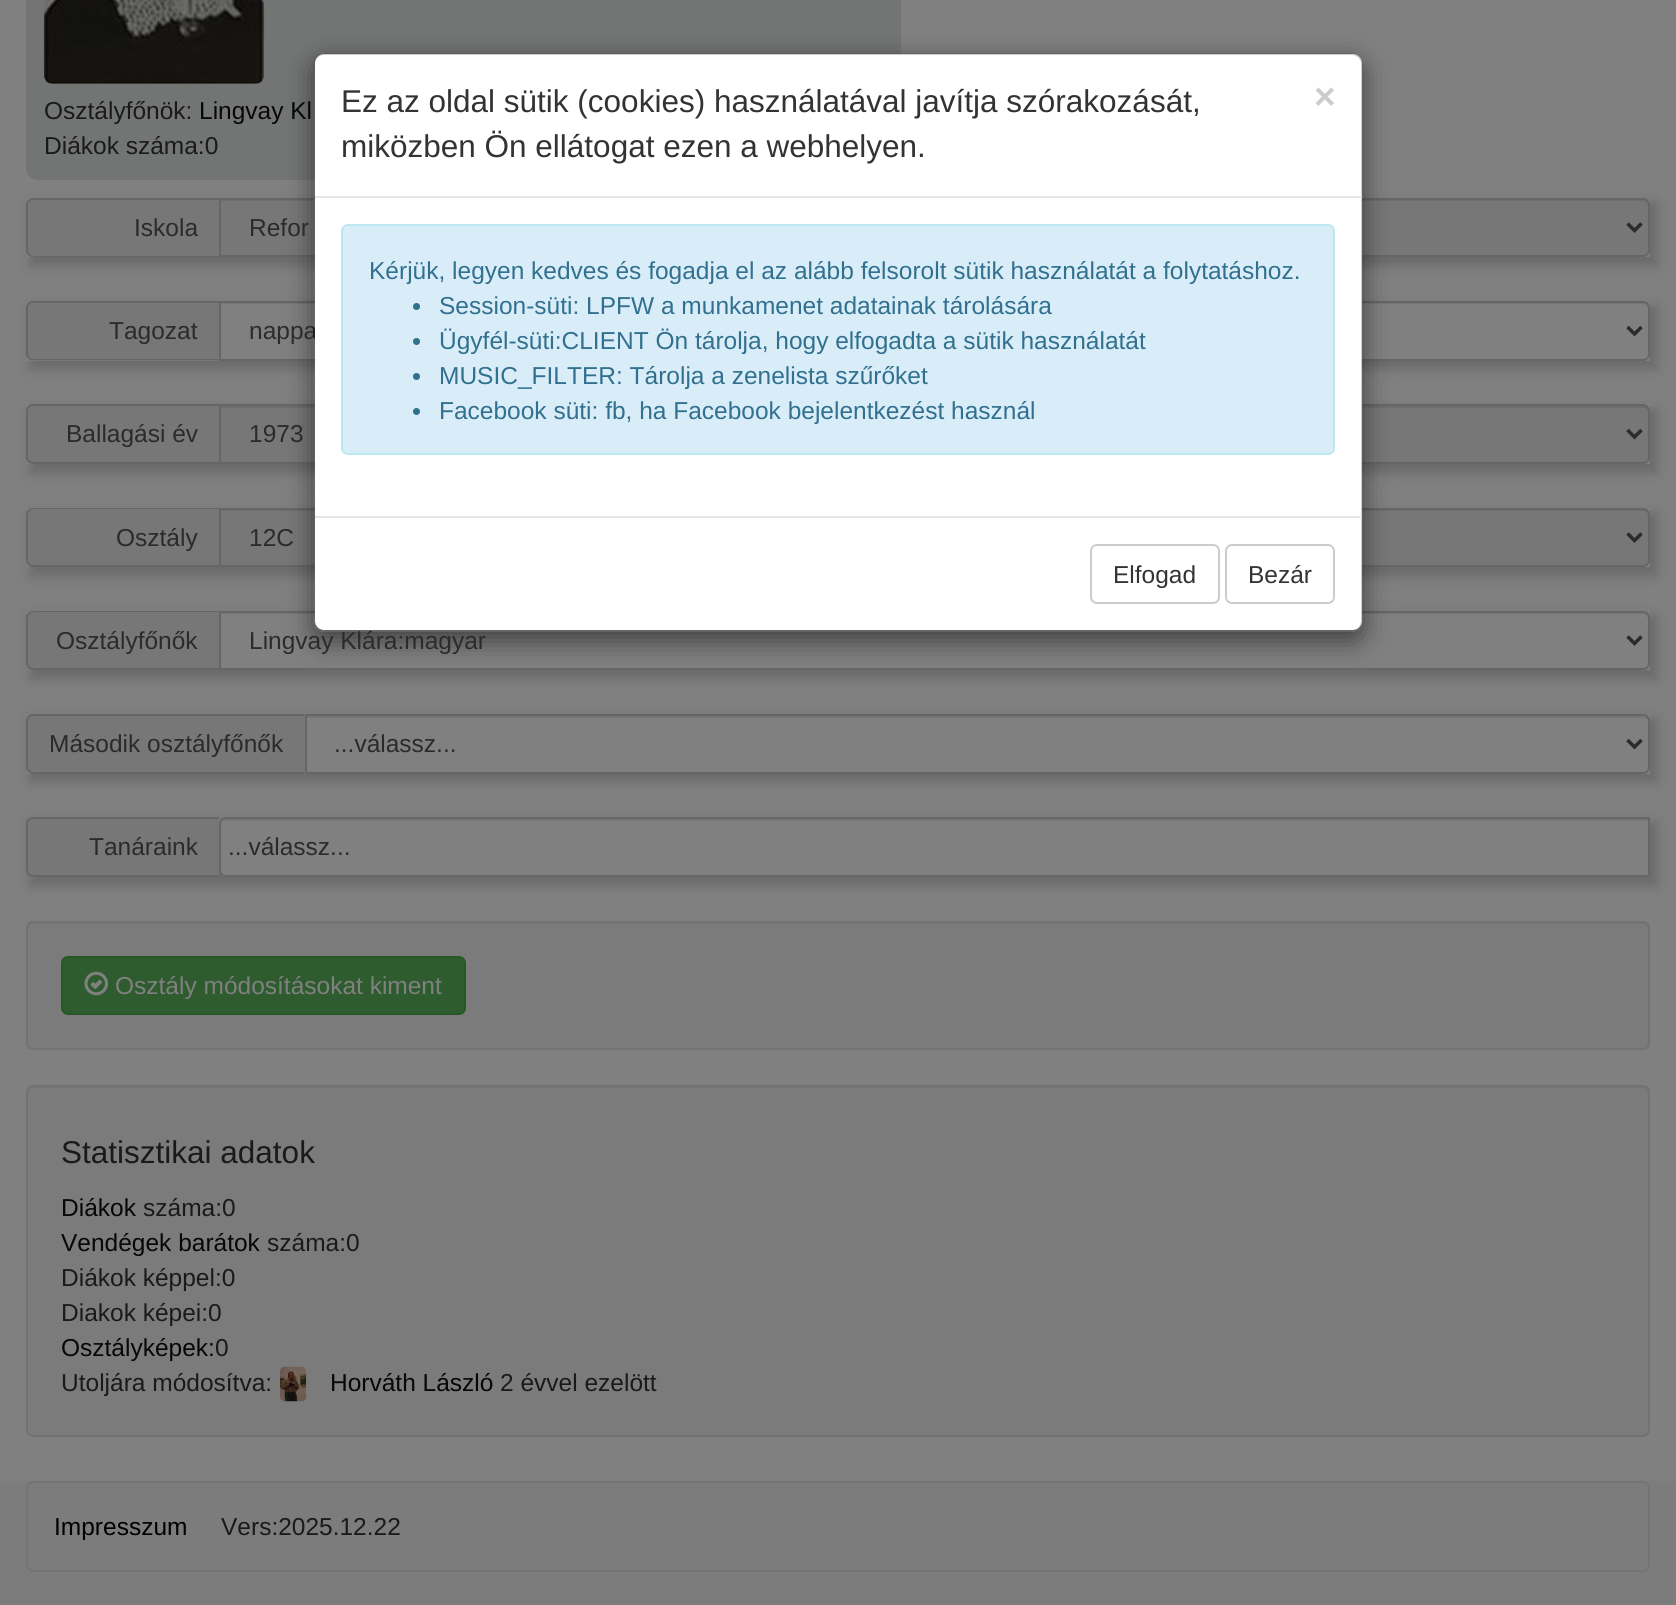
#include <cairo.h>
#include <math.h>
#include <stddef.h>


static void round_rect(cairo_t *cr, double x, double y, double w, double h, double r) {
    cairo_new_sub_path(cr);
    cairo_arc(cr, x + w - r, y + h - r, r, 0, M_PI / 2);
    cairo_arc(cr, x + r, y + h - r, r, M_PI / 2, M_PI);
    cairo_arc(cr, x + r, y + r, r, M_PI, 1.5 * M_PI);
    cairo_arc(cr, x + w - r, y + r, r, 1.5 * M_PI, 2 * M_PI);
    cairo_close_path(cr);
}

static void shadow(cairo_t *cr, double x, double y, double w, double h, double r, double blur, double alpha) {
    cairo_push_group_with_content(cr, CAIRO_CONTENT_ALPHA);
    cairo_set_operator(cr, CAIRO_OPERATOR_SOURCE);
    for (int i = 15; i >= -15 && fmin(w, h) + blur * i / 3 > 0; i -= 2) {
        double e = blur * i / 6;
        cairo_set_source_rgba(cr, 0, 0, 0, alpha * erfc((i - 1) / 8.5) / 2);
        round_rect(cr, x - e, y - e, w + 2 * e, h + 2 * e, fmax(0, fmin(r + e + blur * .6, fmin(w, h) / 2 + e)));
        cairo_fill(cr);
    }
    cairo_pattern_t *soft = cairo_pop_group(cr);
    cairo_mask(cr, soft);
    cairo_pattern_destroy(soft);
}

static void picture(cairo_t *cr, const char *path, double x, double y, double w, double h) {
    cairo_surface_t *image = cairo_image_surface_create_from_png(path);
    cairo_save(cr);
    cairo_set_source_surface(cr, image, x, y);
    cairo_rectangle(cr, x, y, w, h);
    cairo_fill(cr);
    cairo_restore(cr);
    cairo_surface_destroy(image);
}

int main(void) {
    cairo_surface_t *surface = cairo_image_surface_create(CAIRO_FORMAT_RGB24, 1676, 1605);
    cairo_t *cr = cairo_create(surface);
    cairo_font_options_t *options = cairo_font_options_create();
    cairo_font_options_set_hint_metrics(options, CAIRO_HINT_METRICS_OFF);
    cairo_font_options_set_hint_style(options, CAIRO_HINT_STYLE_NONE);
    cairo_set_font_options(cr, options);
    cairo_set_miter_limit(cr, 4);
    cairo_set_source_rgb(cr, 0.502, 0.502, 0.502);
    cairo_paint(cr);
    cairo_set_source_rgb(cr, 0.451, 0.459, 0.459);
    round_rect(cr, 26, -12, 875, 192, 12);
    cairo_fill(cr);
    cairo_save(cr);
    cairo_set_fill_rule(cr, CAIRO_FILL_RULE_EVEN_ODD);
    cairo_new_path(cr);
    cairo_move_to(cr, 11, 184);
    cairo_line_to(cr, 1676, 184);
    cairo_line_to(cr, 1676, 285);
    cairo_line_to(cr, 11, 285);
    cairo_close_path(cr);
    cairo_move_to(cr, 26, 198);
    cairo_line_to(cr, 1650, 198);
    cairo_line_to(cr, 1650, 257);
    cairo_line_to(cr, 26, 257);
    cairo_close_path(cr);
    cairo_clip(cr);
    cairo_set_source_rgb(cr, 0.416, 0.416, 0.416);
    shadow(cr, 30, 203, 1627, 63, 0, 6, 1);
    cairo_restore(cr);
    cairo_set_source_rgb(cr, 0.467, 0.467, 0.467);
    cairo_new_path(cr);
    cairo_move_to(cr, 219, 198);
    cairo_line_to(cr, 1643, 198);
    cairo_curve_to(cr, 1647, 198, 1650, 201, 1650, 205);
    cairo_line_to(cr, 1650, 250);
    cairo_curve_to(cr, 1650, 254, 1647, 257, 1643, 257);
    cairo_line_to(cr, 219, 257);
    cairo_close_path(cr);
    cairo_fill(cr);
    cairo_set_source_rgb(cr, 0.431, 0.431, 0.431);
    cairo_new_path(cr);
    cairo_move_to(cr, 221, 200);
    cairo_line_to(cr, 221, 201);
    cairo_line_to(cr, 1643, 201);
    cairo_curve_to(cr, 1646, 201, 1648, 204, 1648, 206);
    cairo_line_to(cr, 1648, 252);
    cairo_line_to(cr, 1647, 255);
    cairo_curve_to(cr, 1648, 254, 1649, 252, 1649, 251);
    cairo_line_to(cr, 1649, 205);
    cairo_curve_to(cr, 1649, 202, 1647, 200, 1644, 200);
    cairo_close_path(cr);
    cairo_fill(cr);
    cairo_new_path(cr);
    cairo_move_to(cr, 220, 199);
    cairo_line_to(cr, 1643, 199);
    cairo_curve_to(cr, 1646.5, 199, 1649, 201.5, 1649, 205);
    cairo_line_to(cr, 1649, 250);
    cairo_curve_to(cr, 1649, 253.5, 1646.5, 256, 1643, 256);
    cairo_line_to(cr, 220, 256);
    cairo_close_path(cr);
    cairo_set_source_rgb(cr, 0.4, 0.4, 0.4);
    cairo_stroke(cr);
    cairo_save(cr);
    cairo_set_fill_rule(cr, CAIRO_FILL_RULE_EVEN_ODD);
    cairo_new_path(cr);
    cairo_move_to(cr, 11, 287);
    cairo_line_to(cr, 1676, 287);
    cairo_line_to(cr, 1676, 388);
    cairo_line_to(cr, 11, 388);
    cairo_close_path(cr);
    cairo_move_to(cr, 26, 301);
    cairo_line_to(cr, 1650, 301);
    cairo_line_to(cr, 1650, 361);
    cairo_line_to(cr, 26, 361);
    cairo_close_path(cr);
    cairo_clip(cr);
    cairo_set_source_rgb(cr, 0.416, 0.416, 0.416);
    shadow(cr, 30, 306, 1627, 63, 0, 6, 1);
    cairo_restore(cr);
    cairo_set_source_rgb(cr, 0.502, 0.502, 0.502);
    cairo_new_path(cr);
    cairo_move_to(cr, 219, 301);
    cairo_line_to(cr, 1643, 301);
    cairo_curve_to(cr, 1647, 301, 1650, 304, 1650, 308);
    cairo_line_to(cr, 1650, 354);
    cairo_curve_to(cr, 1650, 358, 1647, 361, 1643, 361);
    cairo_line_to(cr, 219, 361);
    cairo_close_path(cr);
    cairo_fill(cr);
    cairo_set_source_rgb(cr, 0.463, 0.463, 0.463);
    cairo_new_path(cr);
    cairo_move_to(cr, 221, 303);
    cairo_line_to(cr, 221, 304);
    cairo_line_to(cr, 1643, 304);
    cairo_curve_to(cr, 1646, 304, 1648, 307, 1648, 310);
    cairo_line_to(cr, 1648, 355);
    cairo_line_to(cr, 1647, 358);
    cairo_curve_to(cr, 1648, 357, 1649, 355, 1649, 354);
    cairo_line_to(cr, 1649, 308);
    cairo_curve_to(cr, 1649, 305, 1647, 303, 1644, 303);
    cairo_close_path(cr);
    cairo_fill(cr);
    cairo_new_path(cr);
    cairo_move_to(cr, 220, 302);
    cairo_line_to(cr, 1643, 302);
    cairo_curve_to(cr, 1646.5, 302, 1649, 304.5, 1649, 308);
    cairo_line_to(cr, 1649, 354);
    cairo_curve_to(cr, 1649, 357.5, 1646.5, 360, 1643, 360);
    cairo_line_to(cr, 220, 360);
    cairo_close_path(cr);
    cairo_set_source_rgb(cr, 0.4, 0.4, 0.4);
    cairo_stroke(cr);
    cairo_save(cr);
    cairo_set_fill_rule(cr, CAIRO_FILL_RULE_EVEN_ODD);
    cairo_new_path(cr);
    cairo_move_to(cr, 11, 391);
    cairo_line_to(cr, 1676, 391);
    cairo_line_to(cr, 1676, 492);
    cairo_line_to(cr, 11, 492);
    cairo_close_path(cr);
    cairo_move_to(cr, 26, 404);
    cairo_line_to(cr, 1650, 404);
    cairo_line_to(cr, 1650, 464);
    cairo_line_to(cr, 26, 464);
    cairo_close_path(cr);
    cairo_clip(cr);
    cairo_set_source_rgb(cr, 0.416, 0.416, 0.416);
    shadow(cr, 30, 410, 1627, 63, 0, 6, 1);
    cairo_restore(cr);
    cairo_set_source_rgb(cr, 0.467, 0.467, 0.467);
    cairo_new_path(cr);
    cairo_move_to(cr, 219, 404);
    cairo_line_to(cr, 1643, 404);
    cairo_curve_to(cr, 1647, 404, 1650, 407, 1650, 411);
    cairo_line_to(cr, 1650, 457);
    cairo_curve_to(cr, 1650, 461, 1647, 464, 1643, 464);
    cairo_line_to(cr, 219, 464);
    cairo_close_path(cr);
    cairo_fill(cr);
    cairo_set_source_rgb(cr, 0.431, 0.431, 0.431);
    cairo_new_path(cr);
    cairo_move_to(cr, 221, 406);
    cairo_line_to(cr, 221, 408);
    cairo_line_to(cr, 1643, 408);
    cairo_curve_to(cr, 1646, 408, 1648, 410, 1648, 413);
    cairo_line_to(cr, 1648, 458);
    cairo_line_to(cr, 1648, 461);
    cairo_curve_to(cr, 1648, 460, 1649, 458, 1649, 457);
    cairo_line_to(cr, 1649, 411);
    cairo_curve_to(cr, 1649, 408, 1647, 406, 1644, 406);
    cairo_close_path(cr);
    cairo_fill(cr);
    cairo_new_path(cr);
    cairo_move_to(cr, 220, 405);
    cairo_line_to(cr, 1643, 405);
    cairo_curve_to(cr, 1646.5, 405, 1649, 407.5, 1649, 411);
    cairo_line_to(cr, 1649, 457);
    cairo_curve_to(cr, 1649, 460.5, 1646.5, 463, 1643, 463);
    cairo_line_to(cr, 220, 463);
    cairo_close_path(cr);
    cairo_set_source_rgb(cr, 0.4, 0.4, 0.4);
    cairo_stroke(cr);
    cairo_save(cr);
    cairo_set_fill_rule(cr, CAIRO_FILL_RULE_EVEN_ODD);
    cairo_new_path(cr);
    cairo_move_to(cr, 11, 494);
    cairo_line_to(cr, 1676, 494);
    cairo_line_to(cr, 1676, 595);
    cairo_line_to(cr, 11, 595);
    cairo_close_path(cr);
    cairo_move_to(cr, 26, 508);
    cairo_line_to(cr, 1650, 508);
    cairo_line_to(cr, 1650, 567);
    cairo_line_to(cr, 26, 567);
    cairo_close_path(cr);
    cairo_clip(cr);
    cairo_set_source_rgb(cr, 0.416, 0.416, 0.416);
    shadow(cr, 30, 513, 1627, 63, 0, 6, 1);
    cairo_restore(cr);
    cairo_set_source_rgb(cr, 0.467, 0.467, 0.467);
    cairo_new_path(cr);
    cairo_move_to(cr, 219, 508);
    cairo_line_to(cr, 1643, 508);
    cairo_curve_to(cr, 1647, 508, 1650, 511, 1650, 515);
    cairo_line_to(cr, 1650, 560);
    cairo_curve_to(cr, 1650, 564, 1647, 567, 1643, 567);
    cairo_line_to(cr, 219, 567);
    cairo_close_path(cr);
    cairo_fill(cr);
    cairo_set_source_rgb(cr, 0.431, 0.431, 0.431);
    cairo_new_path(cr);
    cairo_move_to(cr, 221, 509);
    cairo_line_to(cr, 221, 511);
    cairo_line_to(cr, 1643, 511);
    cairo_curve_to(cr, 1646, 511, 1648, 513, 1648, 516);
    cairo_line_to(cr, 1648, 563);
    cairo_curve_to(cr, 1649, 562, 1649, 561, 1649, 560);
    cairo_line_to(cr, 1649, 514);
    cairo_curve_to(cr, 1649, 511, 1647, 509, 1644, 509);
    cairo_close_path(cr);
    cairo_fill(cr);
    cairo_new_path(cr);
    cairo_move_to(cr, 220, 509);
    cairo_line_to(cr, 1643, 509);
    cairo_curve_to(cr, 1646.5, 509, 1649, 511.5, 1649, 515);
    cairo_line_to(cr, 1649, 560);
    cairo_curve_to(cr, 1649, 563.5, 1646.5, 566, 1643, 566);
    cairo_line_to(cr, 220, 566);
    cairo_close_path(cr);
    cairo_set_source_rgb(cr, 0.4, 0.4, 0.4);
    cairo_stroke(cr);
    cairo_save(cr);
    cairo_set_fill_rule(cr, CAIRO_FILL_RULE_EVEN_ODD);
    cairo_new_path(cr);
    cairo_move_to(cr, 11, 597);
    cairo_line_to(cr, 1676, 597);
    cairo_line_to(cr, 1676, 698);
    cairo_line_to(cr, 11, 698);
    cairo_close_path(cr);
    cairo_move_to(cr, 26, 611);
    cairo_line_to(cr, 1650, 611);
    cairo_line_to(cr, 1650, 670);
    cairo_line_to(cr, 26, 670);
    cairo_close_path(cr);
    cairo_clip(cr);
    cairo_set_source_rgb(cr, 0.416, 0.416, 0.416);
    shadow(cr, 30, 616, 1627, 63, 0, 6, 1);
    cairo_restore(cr);
    cairo_set_source_rgb(cr, 0.463, 0.463, 0.463);
    cairo_new_path(cr);
    cairo_move_to(cr, 221, 613);
    cairo_line_to(cr, 221, 614);
    cairo_line_to(cr, 1643, 614);
    cairo_curve_to(cr, 1646, 614, 1648, 617, 1648, 620);
    cairo_line_to(cr, 1648, 665);
    cairo_line_to(cr, 1647, 668);
    cairo_curve_to(cr, 1648, 667, 1649, 665, 1649, 664);
    cairo_line_to(cr, 1649, 618);
    cairo_curve_to(cr, 1649, 615, 1647, 613, 1644, 613);
    cairo_close_path(cr);
    cairo_fill(cr);
    cairo_new_path(cr);
    cairo_move_to(cr, 220, 612);
    cairo_line_to(cr, 1643, 612);
    cairo_curve_to(cr, 1646.5, 612, 1649, 614.5, 1649, 618);
    cairo_line_to(cr, 1649, 663);
    cairo_curve_to(cr, 1649, 666.5, 1646.5, 669, 1643, 669);
    cairo_line_to(cr, 220, 669);
    cairo_close_path(cr);
    cairo_set_source_rgb(cr, 0.4, 0.4, 0.4);
    cairo_stroke(cr);
    cairo_save(cr);
    cairo_set_fill_rule(cr, CAIRO_FILL_RULE_EVEN_ODD);
    cairo_new_path(cr);
    cairo_move_to(cr, 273, 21);
    cairo_line_to(cr, 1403, 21);
    cairo_line_to(cr, 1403, 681);
    cairo_line_to(cr, 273, 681);
    cairo_close_path(cr);
    cairo_move_to(cr, 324, 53);
    cairo_line_to(cr, 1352, 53);
    cairo_curve_to(cr, 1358, 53, 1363, 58, 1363, 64);
    cairo_line_to(cr, 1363, 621);
    cairo_curve_to(cr, 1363, 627, 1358, 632, 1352, 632);
    cairo_line_to(cr, 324, 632);
    cairo_curve_to(cr, 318, 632, 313, 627, 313, 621);
    cairo_line_to(cr, 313, 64);
    cairo_curve_to(cr, 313, 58, 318, 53, 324, 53);
    cairo_close_path(cr);
    cairo_clip(cr);
    cairo_set_source_rgb(cr, 0, 0, 0);
    shadow(cr, 313, 61, 1050, 580, 11, 13, 0.5);
    cairo_restore(cr);
    cairo_select_font_face(cr, "Liberation Sans", CAIRO_FONT_SLANT_NORMAL, CAIRO_FONT_WEIGHT_NORMAL);
    cairo_set_font_size(cr, 24.5);
    cairo_set_source_rgb(cr, 0.169, 0.169, 0.169);
    cairo_move_to(cr, 249, 339);
    cairo_show_text(cr, "nappa");
    cairo_set_source_rgb(cr, 1, 1, 1);
    round_rect(cr, 315, 54, 1047, 576, 9);
    cairo_fill(cr);
    cairo_set_source_rgb(cr, 0.169, 0.169, 0.169);
    cairo_move_to(cr, 249, 649);
    cairo_show_text(cr, "Lingvay Klára:magyar");
    round_rect(cr, 314, 54, 1048, 577, 10);
    cairo_set_source_rgba(cr, 0, 0, 0, 0.2);
    cairo_stroke(cr);
    cairo_set_source_rgb(cr, 0.898, 0.898, 0.898);
    cairo_rectangle(cr, 315, 196, 1047, 2);
    cairo_fill(cr);
    cairo_set_font_size(cr, 31.5);
    cairo_set_source_rgb(cr, 0.2, 0.2, 0.2);
    cairo_move_to(cr, 341, 112);
    cairo_show_text(cr, "Ez az oldal sütik (cookies) használatával javítja szórakozását,");
    cairo_move_to(cr, 341, 157);
    cairo_show_text(cr, "miközben Ön ellátogat ezen a webhelyen.");
    cairo_select_font_face(cr, "Liberation Sans", CAIRO_FONT_SLANT_NORMAL, CAIRO_FONT_WEIGHT_BOLD);
    cairo_set_font_size(cr, 37);
    cairo_set_source_rgb(cr, 0.8, 0.8, 0.8);
    cairo_move_to(cr, 1314, 109);
    cairo_show_text(cr, "×");
    cairo_set_source_rgb(cr, 0.851, 0.929, 0.969);
    round_rect(cr, 342, 225, 992, 229, 6);
    cairo_fill_preserve(cr);
    cairo_set_source_rgb(cr, 0.737, 0.91, 0.945);
    cairo_stroke(cr);
    cairo_select_font_face(cr, "Liberation Sans", CAIRO_FONT_SLANT_NORMAL, CAIRO_FONT_WEIGHT_NORMAL);
    cairo_set_font_size(cr, 24.5);
    cairo_set_source_rgb(cr, 0.192, 0.439, 0.561);
    cairo_move_to(cr, 369, 279);
    cairo_show_text(cr, "Kérjük, legyen kedves és fogadja el az alább felsorolt sütik használatát a folytatáshoz.");
    cairo_new_path(cr);
    cairo_arc(cr, 416.5, 306.5, 3.5, 0, 2 * M_PI);
    cairo_fill(cr);
    cairo_move_to(cr, 439, 314);
    cairo_show_text(cr, "Session-süti: LPFW a munkamenet adatainak tárolására");
    cairo_new_path(cr);
    cairo_arc(cr, 416.5, 341.5, 3.5, 0, 2 * M_PI);
    cairo_fill(cr);
    cairo_move_to(cr, 439, 349);
    cairo_show_text(cr, "Ügyfél-süti:CLIENT Ön tárolja, hogy elfogadta a sütik használatát");
    cairo_new_path(cr);
    cairo_arc(cr, 416.5, 376.5, 3.5, 0, 2 * M_PI);
    cairo_fill(cr);
    cairo_move_to(cr, 439, 384);
    cairo_show_text(cr, "MUSIC_FILTER: Tárolja a zenelista szűrőket");
    cairo_new_path(cr);
    cairo_arc(cr, 416.5, 411.5, 3.5, 0, 2 * M_PI);
    cairo_fill(cr);
    cairo_move_to(cr, 439, 419);
    cairo_show_text(cr, "Facebook süti: fb, ha Facebook bejelentkezést használ");
    cairo_set_source_rgb(cr, 0.898, 0.898, 0.898);
    cairo_rectangle(cr, 315, 516, 1047, 2);
    cairo_fill(cr);
    round_rect(cr, 1091, 545, 128, 58, 6);
    cairo_set_source_rgb(cr, 0.8, 0.8, 0.8);
    cairo_stroke(cr);
    cairo_set_source_rgb(cr, 0.2, 0.2, 0.2);
    cairo_move_to(cr, 1113, 583);
    cairo_show_text(cr, "Elfogad");
    round_rect(cr, 1226, 545, 108, 58, 6);
    cairo_set_source_rgb(cr, 0.8, 0.8, 0.8);
    cairo_stroke(cr);
    cairo_set_source_rgb(cr, 0.2, 0.2, 0.2);
    cairo_move_to(cr, 1248, 583);
    cairo_show_text(cr, "Bezár");
    picture(cr, "img1.png", 43, 0, 222, 84);
    cairo_set_source_rgb(cr, 0.102, 0.102, 0.102);
    cairo_move_to(cr, 44, 119);
    cairo_show_text(cr, "Osztályfőnök:");
    cairo_set_source_rgb(cr, 0.031, 0.031, 0.031);
    cairo_move_to(cr, 199, 119);
    cairo_show_text(cr, "Lingvay Kl");
    cairo_set_source_rgb(cr, 0.102, 0.102, 0.102);
    cairo_move_to(cr, 44, 154);
    cairo_show_text(cr, "Diákok száma:0");
    cairo_set_source_rgb(cr, 0.467, 0.467, 0.467);
    cairo_new_path(cr);
    cairo_move_to(cr, 33, 198);
    cairo_line_to(cr, 219, 198);
    cairo_line_to(cr, 219, 257);
    cairo_line_to(cr, 33, 257);
    cairo_curve_to(cr, 29, 257, 26, 254, 26, 250);
    cairo_line_to(cr, 26, 205);
    cairo_curve_to(cr, 26, 201, 29, 198, 33, 198);
    cairo_close_path(cr);
    cairo_fill(cr);
    cairo_set_source_rgb(cr, 0.4, 0.4, 0.4);
    cairo_set_fill_rule(cr, CAIRO_FILL_RULE_EVEN_ODD);
    cairo_new_path(cr);
    cairo_move_to(cr, 33, 198);
    cairo_line_to(cr, 219, 198);
    cairo_line_to(cr, 219, 257);
    cairo_line_to(cr, 33, 257);
    cairo_curve_to(cr, 29, 257, 26, 254, 26, 250);
    cairo_line_to(cr, 26, 205);
    cairo_curve_to(cr, 26, 201, 29, 198, 33, 198);
    cairo_close_path(cr);
    cairo_move_to(cr, 33, 200);
    cairo_line_to(cr, 219, 200);
    cairo_line_to(cr, 219, 256);
    cairo_line_to(cr, 33, 256);
    cairo_curve_to(cr, 30, 256, 28, 253, 28, 250);
    cairo_line_to(cr, 28, 205);
    cairo_curve_to(cr, 28, 202, 30, 200, 33, 200);
    cairo_close_path(cr);
    cairo_fill(cr);
    cairo_set_source_rgb(cr, 0.169, 0.169, 0.169);
    cairo_move_to(cr, 134, 236);
    cairo_show_text(cr, "Iskola");
    cairo_new_path(cr);
    cairo_move_to(cr, 1627.5, 223.5);
    cairo_line_to(cr, 1634.5, 230.5);
    cairo_line_to(cr, 1641.5, 223.5);
    cairo_set_line_width(cr, 3.5);
    cairo_stroke(cr);
    cairo_move_to(cr, 249, 236);
    cairo_show_text(cr, "Refor");
    cairo_set_source_rgb(cr, 0.467, 0.467, 0.467);
    cairo_new_path(cr);
    cairo_move_to(cr, 33, 301);
    cairo_line_to(cr, 219, 301);
    cairo_line_to(cr, 219, 361);
    cairo_line_to(cr, 33, 361);
    cairo_curve_to(cr, 29, 361, 26, 358, 26, 354);
    cairo_line_to(cr, 26, 308);
    cairo_curve_to(cr, 26, 304, 29, 301, 33, 301);
    cairo_close_path(cr);
    cairo_fill(cr);
    cairo_set_source_rgb(cr, 0.4, 0.4, 0.4);
    cairo_new_path(cr);
    cairo_move_to(cr, 33, 301);
    cairo_line_to(cr, 219, 301);
    cairo_line_to(cr, 219, 360);
    cairo_line_to(cr, 33, 360);
    cairo_curve_to(cr, 29, 360, 26, 357, 26, 354);
    cairo_line_to(cr, 26, 308);
    cairo_curve_to(cr, 26, 304, 29, 301, 33, 301);
    cairo_close_path(cr);
    cairo_move_to(cr, 33, 303);
    cairo_line_to(cr, 219, 303);
    cairo_line_to(cr, 219, 359);
    cairo_line_to(cr, 33, 359);
    cairo_curve_to(cr, 30, 359, 28, 356, 28, 354);
    cairo_line_to(cr, 28, 308);
    cairo_curve_to(cr, 28, 305, 30, 303, 33, 303);
    cairo_close_path(cr);
    cairo_fill(cr);
    cairo_set_source_rgb(cr, 0.169, 0.169, 0.169);
    cairo_move_to(cr, 109, 339);
    cairo_show_text(cr, "Tagozat");
    cairo_new_path(cr);
    cairo_move_to(cr, 1627.5, 327);
    cairo_line_to(cr, 1634.5, 334);
    cairo_line_to(cr, 1641.5, 327);
    cairo_stroke(cr);
    cairo_set_source_rgb(cr, 0.467, 0.467, 0.467);
    cairo_new_path(cr);
    cairo_move_to(cr, 33, 404);
    cairo_line_to(cr, 219, 404);
    cairo_line_to(cr, 219, 464);
    cairo_line_to(cr, 33, 464);
    cairo_curve_to(cr, 29, 464, 26, 461, 26, 457);
    cairo_line_to(cr, 26, 411);
    cairo_curve_to(cr, 26, 407, 29, 404, 33, 404);
    cairo_close_path(cr);
    cairo_fill(cr);
    cairo_set_source_rgb(cr, 0.4, 0.4, 0.4);
    cairo_new_path(cr);
    cairo_move_to(cr, 33, 404);
    cairo_line_to(cr, 219, 404);
    cairo_line_to(cr, 219, 464);
    cairo_line_to(cr, 33, 464);
    cairo_curve_to(cr, 29, 464, 26, 461, 26, 457);
    cairo_line_to(cr, 26, 411);
    cairo_curve_to(cr, 26, 407, 29, 404, 33, 404);
    cairo_close_path(cr);
    cairo_move_to(cr, 33, 406);
    cairo_line_to(cr, 219, 406);
    cairo_line_to(cr, 219, 462);
    cairo_line_to(cr, 33, 462);
    cairo_curve_to(cr, 30, 462, 28, 460, 28, 457);
    cairo_line_to(cr, 28, 411);
    cairo_curve_to(cr, 28, 408, 30, 406, 33, 406);
    cairo_close_path(cr);
    cairo_fill(cr);
    cairo_set_source_rgb(cr, 0.169, 0.169, 0.169);
    cairo_move_to(cr, 66, 442);
    cairo_show_text(cr, "Ballagási év");
    cairo_new_path(cr);
    cairo_move_to(cr, 1627.5, 430);
    cairo_line_to(cr, 1634.5, 437);
    cairo_line_to(cr, 1641.5, 430);
    cairo_stroke(cr);
    cairo_move_to(cr, 249, 442);
    cairo_show_text(cr, "1973");
    cairo_set_source_rgb(cr, 0.467, 0.467, 0.467);
    cairo_new_path(cr);
    cairo_move_to(cr, 33, 508);
    cairo_line_to(cr, 219, 508);
    cairo_line_to(cr, 219, 567);
    cairo_line_to(cr, 33, 567);
    cairo_curve_to(cr, 29, 567, 26, 564, 26, 560);
    cairo_line_to(cr, 26, 515);
    cairo_curve_to(cr, 26, 511, 29, 508, 33, 508);
    cairo_close_path(cr);
    cairo_fill(cr);
    cairo_set_source_rgb(cr, 0.4, 0.4, 0.4);
    cairo_new_path(cr);
    cairo_move_to(cr, 33, 508);
    cairo_line_to(cr, 219, 508);
    cairo_line_to(cr, 219, 567);
    cairo_line_to(cr, 33, 567);
    cairo_curve_to(cr, 29, 567, 26, 564, 26, 560);
    cairo_line_to(cr, 26, 514);
    cairo_curve_to(cr, 26, 511, 29, 508, 33, 508);
    cairo_close_path(cr);
    cairo_move_to(cr, 33, 509);
    cairo_line_to(cr, 219, 509);
    cairo_line_to(cr, 219, 565);
    cairo_line_to(cr, 33, 565);
    cairo_curve_to(cr, 30, 565, 28, 563, 28, 560);
    cairo_line_to(cr, 28, 514);
    cairo_curve_to(cr, 28, 512, 30, 509, 33, 509);
    cairo_close_path(cr);
    cairo_fill(cr);
    cairo_set_source_rgb(cr, 0.169, 0.169, 0.169);
    cairo_move_to(cr, 116, 546);
    cairo_show_text(cr, "Osztály");
    cairo_new_path(cr);
    cairo_move_to(cr, 1627.5, 533.5);
    cairo_line_to(cr, 1634.5, 540.5);
    cairo_line_to(cr, 1641.5, 533.5);
    cairo_stroke(cr);
    cairo_move_to(cr, 249, 546);
    cairo_show_text(cr, "12C");
    cairo_set_source_rgb(cr, 0.467, 0.467, 0.467);
    cairo_new_path(cr);
    cairo_move_to(cr, 33, 611);
    cairo_line_to(cr, 219, 611);
    cairo_line_to(cr, 219, 670);
    cairo_line_to(cr, 33, 670);
    cairo_curve_to(cr, 29, 670, 26, 667, 26, 663);
    cairo_line_to(cr, 26, 618);
    cairo_curve_to(cr, 26, 614, 29, 611, 33, 611);
    cairo_close_path(cr);
    cairo_fill(cr);
    cairo_set_source_rgb(cr, 0.4, 0.4, 0.4);
    cairo_new_path(cr);
    cairo_move_to(cr, 33, 611);
    cairo_line_to(cr, 219, 611);
    cairo_line_to(cr, 219, 670);
    cairo_line_to(cr, 33, 670);
    cairo_curve_to(cr, 29, 670, 26, 667, 26, 663);
    cairo_line_to(cr, 26, 618);
    cairo_curve_to(cr, 26, 614, 29, 611, 33, 611);
    cairo_close_path(cr);
    cairo_move_to(cr, 33, 612);
    cairo_line_to(cr, 219, 612);
    cairo_line_to(cr, 219, 668);
    cairo_line_to(cr, 33, 668);
    cairo_curve_to(cr, 30, 668, 28, 666, 28, 663);
    cairo_line_to(cr, 28, 618);
    cairo_curve_to(cr, 28, 615, 30, 612, 33, 612);
    cairo_close_path(cr);
    cairo_fill(cr);
    cairo_set_source_rgb(cr, 0.169, 0.169, 0.169);
    cairo_move_to(cr, 56, 649);
    cairo_show_text(cr, "Osztályfőnők");
    cairo_new_path(cr);
    cairo_move_to(cr, 1627.5, 636.5);
    cairo_line_to(cr, 1634.5, 643.5);
    cairo_line_to(cr, 1641.5, 636.5);
    cairo_stroke(cr);
    cairo_save(cr);
    cairo_new_path(cr);
    cairo_move_to(cr, 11, 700);
    cairo_line_to(cr, 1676, 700);
    cairo_line_to(cr, 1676, 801);
    cairo_line_to(cr, 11, 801);
    cairo_close_path(cr);
    cairo_move_to(cr, 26, 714);
    cairo_line_to(cr, 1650, 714);
    cairo_line_to(cr, 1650, 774);
    cairo_line_to(cr, 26, 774);
    cairo_close_path(cr);
    cairo_clip(cr);
    cairo_set_source_rgb(cr, 0.416, 0.416, 0.416);
    shadow(cr, 30, 719, 1627, 63, 0, 6, 1);
    cairo_restore(cr);
    cairo_set_source_rgb(cr, 0.467, 0.467, 0.467);
    cairo_new_path(cr);
    cairo_move_to(cr, 33, 714);
    cairo_line_to(cr, 305, 714);
    cairo_line_to(cr, 305, 774);
    cairo_line_to(cr, 33, 774);
    cairo_curve_to(cr, 29, 774, 26, 771, 26, 767);
    cairo_line_to(cr, 26, 721);
    cairo_curve_to(cr, 26, 717, 29, 714, 33, 714);
    cairo_close_path(cr);
    cairo_fill(cr);
    cairo_set_source_rgb(cr, 0.4, 0.4, 0.4);
    cairo_new_path(cr);
    cairo_move_to(cr, 33, 714);
    cairo_line_to(cr, 304, 714);
    cairo_line_to(cr, 304, 774);
    cairo_line_to(cr, 33, 774);
    cairo_curve_to(cr, 29, 774, 26, 770, 26, 766);
    cairo_line_to(cr, 26, 721);
    cairo_curve_to(cr, 26, 717, 29, 714, 33, 714);
    cairo_close_path(cr);
    cairo_move_to(cr, 33, 716);
    cairo_line_to(cr, 304, 716);
    cairo_line_to(cr, 304, 772);
    cairo_line_to(cr, 33, 772);
    cairo_curve_to(cr, 30, 772, 28, 769, 28, 766);
    cairo_line_to(cr, 28, 721);
    cairo_curve_to(cr, 28, 718, 30, 716, 33, 716);
    cairo_close_path(cr);
    cairo_fill(cr);
    cairo_set_source_rgb(cr, 0.169, 0.169, 0.169);
    cairo_move_to(cr, 49, 752);
    cairo_show_text(cr, "Második osztályfőnők");
    cairo_set_source_rgb(cr, 0.502, 0.502, 0.502);
    cairo_new_path(cr);
    cairo_move_to(cr, 305, 714);
    cairo_line_to(cr, 1643, 714);
    cairo_curve_to(cr, 1647, 714, 1650, 717, 1650, 721);
    cairo_line_to(cr, 1650, 767);
    cairo_curve_to(cr, 1650, 771, 1647, 774, 1643, 774);
    cairo_line_to(cr, 305, 774);
    cairo_close_path(cr);
    cairo_fill(cr);
    cairo_set_source_rgb(cr, 0.463, 0.463, 0.463);
    cairo_set_fill_rule(cr, CAIRO_FILL_RULE_WINDING);
    cairo_new_path(cr);
    cairo_move_to(cr, 306, 718);
    cairo_line_to(cr, 1643, 718);
    cairo_curve_to(cr, 1646, 718, 1648, 720, 1648, 723);
    cairo_line_to(cr, 1648, 768);
    cairo_line_to(cr, 1648, 771);
    cairo_curve_to(cr, 1648, 770, 1649, 768, 1649, 767);
    cairo_line_to(cr, 1649, 721);
    cairo_curve_to(cr, 1649, 718, 1647, 716, 1644, 716);
    cairo_line_to(cr, 306, 716);
    cairo_close_path(cr);
    cairo_fill(cr);
    cairo_new_path(cr);
    cairo_move_to(cr, 306, 715);
    cairo_line_to(cr, 1643, 715);
    cairo_curve_to(cr, 1646.5, 715, 1649, 717.5, 1649, 721);
    cairo_line_to(cr, 1649, 767);
    cairo_curve_to(cr, 1649, 770.5, 1646.5, 773, 1643, 773);
    cairo_line_to(cr, 306, 773);
    cairo_close_path(cr);
    cairo_set_source_rgb(cr, 0.4, 0.4, 0.4);
    cairo_set_line_width(cr, 2);
    cairo_stroke(cr);
    cairo_new_path(cr);
    cairo_move_to(cr, 1627.5, 740);
    cairo_line_to(cr, 1634.5, 747);
    cairo_line_to(cr, 1641.5, 740);
    cairo_set_source_rgb(cr, 0.169, 0.169, 0.169);
    cairo_set_line_width(cr, 3.5);
    cairo_stroke(cr);
    cairo_move_to(cr, 334, 752);
    cairo_show_text(cr, "...válassz...");
    cairo_set_source_rgb(cr, 0.416, 0.416, 0.416);
    shadow(cr, 30, 823, 1627, 63, 0, 6, 1);
    cairo_set_source_rgb(cr, 0.467, 0.467, 0.467);
    cairo_new_path(cr);
    cairo_move_to(cr, 33, 817);
    cairo_line_to(cr, 219, 817);
    cairo_line_to(cr, 219, 877);
    cairo_line_to(cr, 33, 877);
    cairo_curve_to(cr, 29, 877, 26, 874, 26, 870);
    cairo_line_to(cr, 26, 824);
    cairo_curve_to(cr, 26, 820, 29, 817, 33, 817);
    cairo_close_path(cr);
    cairo_fill(cr);
    cairo_set_source_rgb(cr, 0.4, 0.4, 0.4);
    cairo_set_fill_rule(cr, CAIRO_FILL_RULE_EVEN_ODD);
    cairo_new_path(cr);
    cairo_move_to(cr, 33, 817);
    cairo_line_to(cr, 219, 817);
    cairo_line_to(cr, 219, 877);
    cairo_line_to(cr, 33, 877);
    cairo_curve_to(cr, 29, 877, 26, 874, 26, 870);
    cairo_line_to(cr, 26, 824);
    cairo_curve_to(cr, 26, 820, 29, 817, 33, 817);
    cairo_close_path(cr);
    cairo_move_to(cr, 33, 819);
    cairo_line_to(cr, 219, 819);
    cairo_line_to(cr, 219, 875);
    cairo_line_to(cr, 33, 875);
    cairo_curve_to(cr, 30, 875, 28, 873, 28, 870);
    cairo_line_to(cr, 28, 824);
    cairo_curve_to(cr, 28, 821, 30, 819, 33, 819);
    cairo_close_path(cr);
    cairo_fill(cr);
    cairo_set_source_rgb(cr, 0.169, 0.169, 0.169);
    cairo_move_to(cr, 89, 855);
    cairo_show_text(cr, "Tanáraink");
    cairo_set_source_rgb(cr, 0.502, 0.502, 0.502);
    cairo_new_path(cr);
    cairo_move_to(cr, 226, 817);
    cairo_line_to(cr, 1650, 817);
    cairo_line_to(cr, 1650, 877);
    cairo_line_to(cr, 226, 877);
    cairo_curve_to(cr, 222, 877, 219, 874, 219, 870);
    cairo_line_to(cr, 219, 824);
    cairo_curve_to(cr, 219, 820, 222, 817, 226, 817);
    cairo_close_path(cr);
    cairo_fill(cr);
    cairo_set_source_rgb(cr, 0.463, 0.463, 0.463);
    cairo_set_fill_rule(cr, CAIRO_FILL_RULE_WINDING);
    cairo_new_path(cr);
    cairo_move_to(cr, 226, 821);
    cairo_line_to(cr, 1648, 821);
    cairo_line_to(cr, 1648, 875);
    cairo_line_to(cr, 1649, 875);
    cairo_line_to(cr, 1649, 819);
    cairo_line_to(cr, 226, 819);
    cairo_curve_to(cr, 224, 819, 221, 821, 221, 823);
    cairo_curve_to(cr, 222, 822, 224, 821, 226, 821);
    cairo_close_path(cr);
    cairo_fill(cr);
    cairo_new_path(cr);
    cairo_move_to(cr, 226, 818);
    cairo_line_to(cr, 1649, 818);
    cairo_line_to(cr, 1649, 876);
    cairo_line_to(cr, 226, 876);
    cairo_curve_to(cr, 222.5, 876, 220, 873.5, 220, 870);
    cairo_line_to(cr, 220, 824);
    cairo_curve_to(cr, 220, 820.5, 222.5, 818, 226, 818);
    cairo_close_path(cr);
    cairo_set_source_rgb(cr, 0.4, 0.4, 0.4);
    cairo_set_line_width(cr, 2);
    cairo_stroke(cr);
    cairo_set_source_rgb(cr, 0.169, 0.169, 0.169);
    cairo_move_to(cr, 228, 855);
    cairo_show_text(cr, "...válassz...");
    cairo_set_source_rgb(cr, 0.482, 0.482, 0.482);
    round_rect(cr, 26, 921, 1624, 129, 7);
    cairo_fill(cr);
    cairo_set_source_rgb(cr, 0.459, 0.459, 0.459);
    cairo_new_path(cr);
    cairo_move_to(cr, 33, 924);
    cairo_line_to(cr, 1643, 924);
    cairo_curve_to(cr, 1646, 924, 1648, 926, 1648, 929);
    cairo_line_to(cr, 1648, 1046);
    cairo_curve_to(cr, 1649, 1045, 1649, 1044, 1649, 1043);
    cairo_line_to(cr, 1649, 927);
    cairo_curve_to(cr, 1649, 924, 1647, 922, 1644, 922);
    cairo_line_to(cr, 33, 922);
    cairo_curve_to(cr, 30, 922, 28, 924, 28, 927);
    cairo_line_to(cr, 28, 929);
    cairo_curve_to(cr, 28, 926, 30, 924, 33, 924);
    cairo_close_path(cr);
    cairo_fill(cr);
    round_rect(cr, 27, 922, 1622, 127, 6);
    cairo_set_source_rgb(cr, 0.447, 0.447, 0.447);
    cairo_stroke(cr);
    cairo_set_source_rgb(cr, 0.18, 0.361, 0.18);
    round_rect(cr, 62, 957, 403, 57, 6);
    cairo_fill_preserve(cr);
    cairo_set_source_rgb(cr, 0.149, 0.341, 0.149);
    cairo_stroke(cr);
    picture(cr, "img2.png", 84, 971, 24, 25);
    cairo_set_source_rgb(cr, 0.502, 0.502, 0.502);
    cairo_move_to(cr, 115, 994);
    cairo_show_text(cr, "Osztály módosításokat kiment");
    cairo_set_source_rgb(cr, 0.482, 0.482, 0.482);
    round_rect(cr, 26, 1085, 1624, 352, 7);
    cairo_fill(cr);
    cairo_set_source_rgb(cr, 0.459, 0.459, 0.459);
    cairo_new_path(cr);
    cairo_move_to(cr, 33, 1088);
    cairo_line_to(cr, 1643, 1088);
    cairo_curve_to(cr, 1646, 1088, 1648, 1091, 1648, 1094);
    cairo_line_to(cr, 1648, 1433);
    cairo_curve_to(cr, 1649, 1432, 1649, 1431, 1649, 1430);
    cairo_line_to(cr, 1649, 1092);
    cairo_curve_to(cr, 1649, 1089, 1647, 1087, 1644, 1087);
    cairo_line_to(cr, 33, 1087);
    cairo_curve_to(cr, 30, 1087, 28, 1089, 28, 1092);
    cairo_line_to(cr, 28, 1094);
    cairo_curve_to(cr, 28, 1091, 30, 1088, 33, 1088);
    cairo_close_path(cr);
    cairo_fill(cr);
    round_rect(cr, 27, 1086, 1622, 350, 6);
    cairo_set_source_rgb(cr, 0.447, 0.447, 0.447);
    cairo_stroke(cr);
    cairo_set_font_size(cr, 31.5);
    cairo_set_source_rgb(cr, 0.102, 0.102, 0.102);
    cairo_move_to(cr, 61, 1163);
    cairo_show_text(cr, "Statisztikai adatok");
    cairo_set_font_size(cr, 24.5);
    cairo_set_source_rgb(cr, 0.031, 0.031, 0.031);
    cairo_move_to(cr, 61, 1216);
    cairo_show_text(cr, "Diákok");
    cairo_set_source_rgb(cr, 0.102, 0.102, 0.102);
    cairo_move_to(cr, 143, 1216);
    cairo_show_text(cr, "száma:0");
    cairo_set_source_rgb(cr, 0.031, 0.031, 0.031);
    cairo_move_to(cr, 61, 1251);
    cairo_show_text(cr, "Vendégek barátok");
    cairo_set_source_rgb(cr, 0.102, 0.102, 0.102);
    cairo_move_to(cr, 267, 1251);
    cairo_show_text(cr, "száma:0");
    cairo_move_to(cr, 61, 1286);
    cairo_show_text(cr, "Diákok képpel:0");
    cairo_move_to(cr, 61, 1321);
    cairo_show_text(cr, "Diakok képei:0");
    cairo_set_source_rgb(cr, 0.031, 0.031, 0.031);
    cairo_move_to(cr, 61, 1356);
    cairo_show_text(cr, "Osztályképek:");
    cairo_set_source_rgb(cr, 0.102, 0.102, 0.102);
    cairo_move_to(cr, 215, 1356);
    cairo_show_text(cr, "0");
    cairo_move_to(cr, 61, 1391);
    cairo_show_text(cr, "Utoljára módosítva:");
    picture(cr, "img3.png", 280, 1366, 27, 36);
    cairo_set_source_rgb(cr, 0.031, 0.031, 0.031);
    cairo_move_to(cr, 330, 1391);
    cairo_show_text(cr, "Horváth László");
    cairo_set_source_rgb(cr, 0.102, 0.102, 0.102);
    cairo_move_to(cr, 500, 1391);
    cairo_show_text(cr, "2 évvel ezelött");
    cairo_set_source_rgb(cr, 0.486, 0.486, 0.486);
    cairo_rectangle(cr, 0, 1481, 1676, 124);
    cairo_fill(cr);
    round_rect(cr, 27, 1482, 1622, 89, 6);
    cairo_set_source_rgb(cr, 0.455, 0.455, 0.455);
    cairo_stroke(cr);
    cairo_set_source_rgb(cr, 0, 0, 0);
    cairo_move_to(cr, 54, 1535);
    cairo_show_text(cr, "Impresszum");
    cairo_set_source_rgb(cr, 0.102, 0.102, 0.102);
    cairo_move_to(cr, 221, 1535);
    cairo_show_text(cr, "Vers:2025.12.22");
    cairo_surface_write_to_png(surface, "page.png");
    cairo_font_options_destroy(options);
    cairo_destroy(cr);
    cairo_surface_destroy(surface);
    return 0;
}
